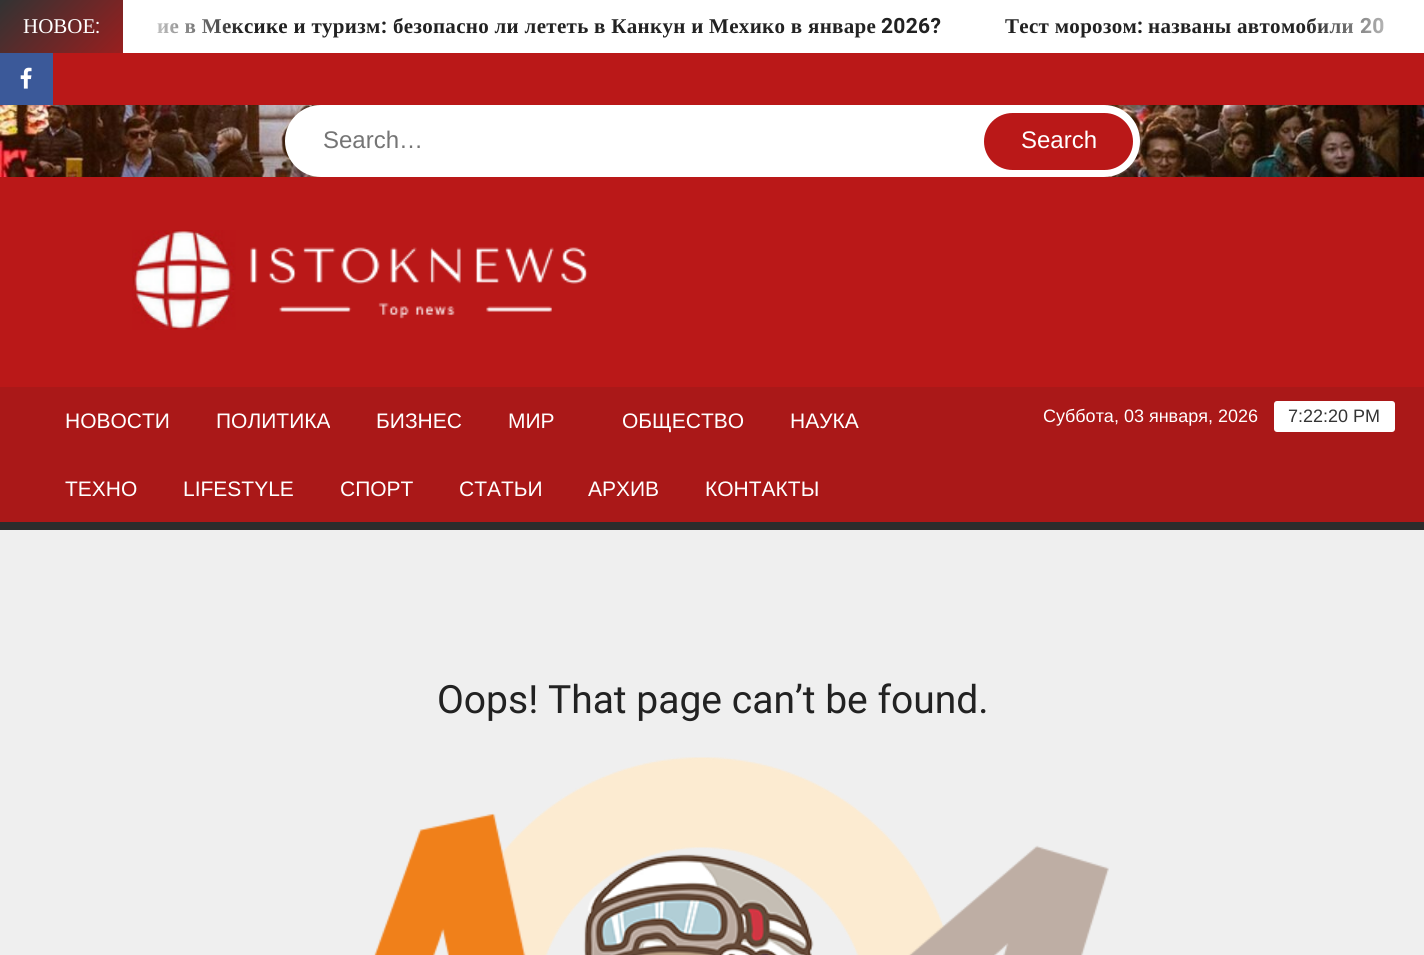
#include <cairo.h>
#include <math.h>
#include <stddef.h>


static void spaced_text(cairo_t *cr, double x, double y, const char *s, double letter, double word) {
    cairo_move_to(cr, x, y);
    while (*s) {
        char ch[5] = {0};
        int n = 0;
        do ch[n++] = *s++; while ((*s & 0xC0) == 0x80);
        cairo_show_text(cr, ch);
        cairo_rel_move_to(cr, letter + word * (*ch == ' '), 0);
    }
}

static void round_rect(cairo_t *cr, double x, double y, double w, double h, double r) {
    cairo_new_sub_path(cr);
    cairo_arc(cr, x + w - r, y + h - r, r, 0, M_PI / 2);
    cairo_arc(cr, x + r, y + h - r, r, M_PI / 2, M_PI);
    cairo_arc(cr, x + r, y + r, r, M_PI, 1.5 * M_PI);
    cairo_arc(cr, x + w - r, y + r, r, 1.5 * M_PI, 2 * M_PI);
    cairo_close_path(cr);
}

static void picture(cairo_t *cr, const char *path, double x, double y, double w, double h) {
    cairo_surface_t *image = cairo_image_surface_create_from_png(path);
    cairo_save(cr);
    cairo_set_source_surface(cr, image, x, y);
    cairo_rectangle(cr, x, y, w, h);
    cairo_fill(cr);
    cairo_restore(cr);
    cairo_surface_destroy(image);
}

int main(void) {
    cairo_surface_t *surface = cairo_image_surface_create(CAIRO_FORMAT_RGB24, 1424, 955);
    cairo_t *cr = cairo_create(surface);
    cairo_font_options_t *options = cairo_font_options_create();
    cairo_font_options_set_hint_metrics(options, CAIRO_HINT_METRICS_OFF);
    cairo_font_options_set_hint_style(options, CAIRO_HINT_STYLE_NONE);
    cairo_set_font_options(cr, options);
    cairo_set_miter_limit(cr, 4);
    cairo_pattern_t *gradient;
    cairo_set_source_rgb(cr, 0.937, 0.937, 0.937);
    cairo_paint(cr);
    cairo_set_source_rgb(cr, 1, 1, 1);
    cairo_rectangle(cr, 124, 0, 1300, 53);
    cairo_fill(cr);
    cairo_select_font_face(cr, "Liberation Serif", CAIRO_FONT_SLANT_NORMAL, CAIRO_FONT_WEIGHT_BOLD);
    cairo_set_font_size(cr, 21);
    cairo_set_source_rgb(cr, 0.133, 0.133, 0.133);
    spaced_text(cr, 157, 33, "ие в Мексике и туризм", 0.3, 0);
    cairo_select_font_face(cr, "Heebo", CAIRO_FONT_SLANT_NORMAL, CAIRO_FONT_WEIGHT_BOLD);
    spaced_text(cr, 381, 33, ":", 0.3, 0);
    cairo_select_font_face(cr, "Liberation Serif", CAIRO_FONT_SLANT_NORMAL, CAIRO_FONT_WEIGHT_BOLD);
    spaced_text(cr, 393, 33, "безопасно ли лететь в Канкун и Мехико в январе", 0.3, 0);
    cairo_select_font_face(cr, "Heebo", CAIRO_FONT_SLANT_NORMAL, CAIRO_FONT_WEIGHT_BOLD);
    spaced_text(cr, 881, 33, "2026?", 0.3, 0);
    cairo_select_font_face(cr, "Liberation Serif", CAIRO_FONT_SLANT_NORMAL, CAIRO_FONT_WEIGHT_BOLD);
    spaced_text(cr, 1005, 33, "Тест морозом", 0.3, 0);
    cairo_select_font_face(cr, "Heebo", CAIRO_FONT_SLANT_NORMAL, CAIRO_FONT_WEIGHT_BOLD);
    spaced_text(cr, 1137, 33, ":", 0.3, 0);
    cairo_select_font_face(cr, "Liberation Serif", CAIRO_FONT_SLANT_NORMAL, CAIRO_FONT_WEIGHT_BOLD);
    spaced_text(cr, 1148, 33, "названы автомобили", 0.3, 0);
    cairo_select_font_face(cr, "Heebo", CAIRO_FONT_SLANT_NORMAL, CAIRO_FONT_WEIGHT_BOLD);
    spaced_text(cr, 1360, 33, "20", 0.3, 0);
    gradient = cairo_pattern_create_linear(422, 281, 71, -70);
    cairo_pattern_add_color_stop_rgba(gradient, 0, 0.729, 0.094, 0.094, 1);
    cairo_pattern_add_color_stop_rgba(gradient, 0.33, 0.933, 0.933, 0.933, 1);
    cairo_pattern_add_color_stop_rgba(gradient, 0.67, 0.729, 0.094, 0.094, 1);
    cairo_pattern_add_color_stop_rgba(gradient, 1, 0.2, 0.2, 0.2, 1);
    cairo_set_source(cr, gradient);
    cairo_pattern_destroy(gradient);
    cairo_rectangle(cr, 0, 0, 123, 53);
    cairo_fill(cr);
    cairo_select_font_face(cr, "Liberation Serif", CAIRO_FONT_SLANT_NORMAL, CAIRO_FONT_WEIGHT_NORMAL);
    cairo_set_source_rgb(cr, 1, 1, 1);
    cairo_move_to(cr, 23, 33);
    cairo_show_text(cr, "НОВОЕ");
    cairo_select_font_face(cr, "Heebo", CAIRO_FONT_SLANT_NORMAL, CAIRO_FONT_WEIGHT_NORMAL);
    cairo_move_to(cr, 95, 33);
    cairo_show_text(cr, ":");
    gradient = cairo_pattern_create_linear(123, 26, 243, 26);
    cairo_pattern_add_color_stop_rgba(gradient, 0, 1, 1, 1, 1);
    cairo_pattern_add_color_stop_rgba(gradient, 1, 1, 1, 1, 0);
    cairo_set_source(cr, gradient);
    cairo_pattern_destroy(gradient);
    cairo_rectangle(cr, 123, 0, 117, 53);
    cairo_fill(cr);
    gradient = cairo_pattern_create_linear(1305, 26, 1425, 26);
    cairo_pattern_add_color_stop_rgba(gradient, 0, 1, 1, 1, 0);
    cairo_pattern_add_color_stop_rgba(gradient, 1, 1, 1, 1, 1);
    cairo_set_source(cr, gradient);
    cairo_pattern_destroy(gradient);
    cairo_rectangle(cr, 1308, 17, 76, 17);
    cairo_fill(cr);
    cairo_set_source_rgb(cr, 0.729, 0.094, 0.094);
    cairo_rectangle(cr, 53, 53, 1371, 52);
    cairo_fill(cr);
    cairo_set_source_rgb(cr, 0.231, 0.349, 0.6);
    cairo_rectangle(cr, 0, 53, 53, 52);
    cairo_fill(cr);
    picture(cr, "img1.png", 20, 67, 12, 22);
    picture(cr, "img2.png", 0, 105, 1424, 72);
    cairo_set_source_rgb(cr, 1, 1, 1);
    round_rect(cr, 285, 105, 855, 72, 36);
    cairo_fill(cr);
    cairo_select_font_face(cr, "Arimo", CAIRO_FONT_SLANT_NORMAL, CAIRO_FONT_WEIGHT_NORMAL);
    cairo_set_font_size(cr, 24);
    cairo_set_source_rgb(cr, 0.459, 0.459, 0.459);
    cairo_move_to(cr, 323, 148);
    cairo_show_text(cr, "Search…");
    cairo_save(cr);
    round_rect(cr, 293, 113, 840, 57, 28.5);
    cairo_clip(cr);
    cairo_set_source_rgb(cr, 0.729, 0.094, 0.094);
    round_rect(cr, 984, 113, 150, 57, 28.5);
    cairo_fill(cr);
    cairo_restore(cr);
    cairo_set_source_rgb(cr, 1, 1, 1);
    cairo_move_to(cr, 1021, 148);
    cairo_show_text(cr, "Search");
    cairo_set_source_rgb(cr, 0.729, 0.094, 0.094);
    cairo_rectangle(cr, 0, 177, 1424, 210);
    cairo_fill(cr);
    picture(cr, "img3.png", 132, 230, 456, 100);
    cairo_set_source_rgb(cr, 0.667, 0.094, 0.094);
    cairo_rectangle(cr, 0, 387, 1424, 135);
    cairo_fill(cr);
    cairo_set_source_rgb(cr, 0.173, 0.173, 0.173);
    cairo_rectangle(cr, 0, 522, 1424, 8);
    cairo_fill(cr);
    cairo_set_font_size(cr, 21);
    cairo_set_source_rgb(cr, 1, 1, 1);
    cairo_move_to(cr, 65, 428);
    cairo_show_text(cr, "НОВОСТИ");
    cairo_move_to(cr, 216, 428);
    cairo_show_text(cr, "ПОЛИТИКА");
    cairo_move_to(cr, 376, 428);
    cairo_show_text(cr, "БИЗНЕС");
    cairo_move_to(cr, 508, 428);
    cairo_show_text(cr, "МИР");
    cairo_move_to(cr, 622, 428);
    cairo_show_text(cr, "ОБЩЕСТВО");
    cairo_move_to(cr, 790, 428);
    cairo_show_text(cr, "НАУКА");
    cairo_move_to(cr, 65, 496);
    cairo_show_text(cr, "ТЕХНО");
    cairo_move_to(cr, 183, 496);
    cairo_show_text(cr, "LIFESTYLE");
    cairo_move_to(cr, 340, 496);
    cairo_show_text(cr, "СПОРТ");
    cairo_move_to(cr, 459, 496);
    cairo_show_text(cr, "СТАТЬИ");
    cairo_move_to(cr, 588, 496);
    cairo_show_text(cr, "АРХИВ");
    cairo_move_to(cr, 705, 496);
    cairo_show_text(cr, "КОНТАКТЫ");
    cairo_set_font_size(cr, 18);
    cairo_move_to(cr, 1043, 422);
    cairo_show_text(cr, "Суббота, 03 января, 2026");
    round_rect(cr, 1274, 401, 121, 31, 3);
    cairo_fill(cr);
    cairo_set_source_rgb(cr, 0.2, 0.2, 0.2);
    cairo_move_to(cr, 1288, 422);
    cairo_show_text(cr, "7:22:20 PM");
    cairo_select_font_face(cr, "Heebo", CAIRO_FONT_SLANT_NORMAL, CAIRO_FONT_WEIGHT_NORMAL);
    cairo_set_font_size(cr, 39);
    cairo_set_source_rgb(cr, 0.133, 0.133, 0.133);
    cairo_move_to(cr, 437, 713);
    cairo_show_text(cr, "Oops! That page can’t be found.");
    picture(cr, "img4.png", 374, 757, 735, 198);
    cairo_surface_write_to_png(surface, "page.png");
    cairo_font_options_destroy(options);
    cairo_destroy(cr);
    cairo_surface_destroy(surface);
    return 0;
}
